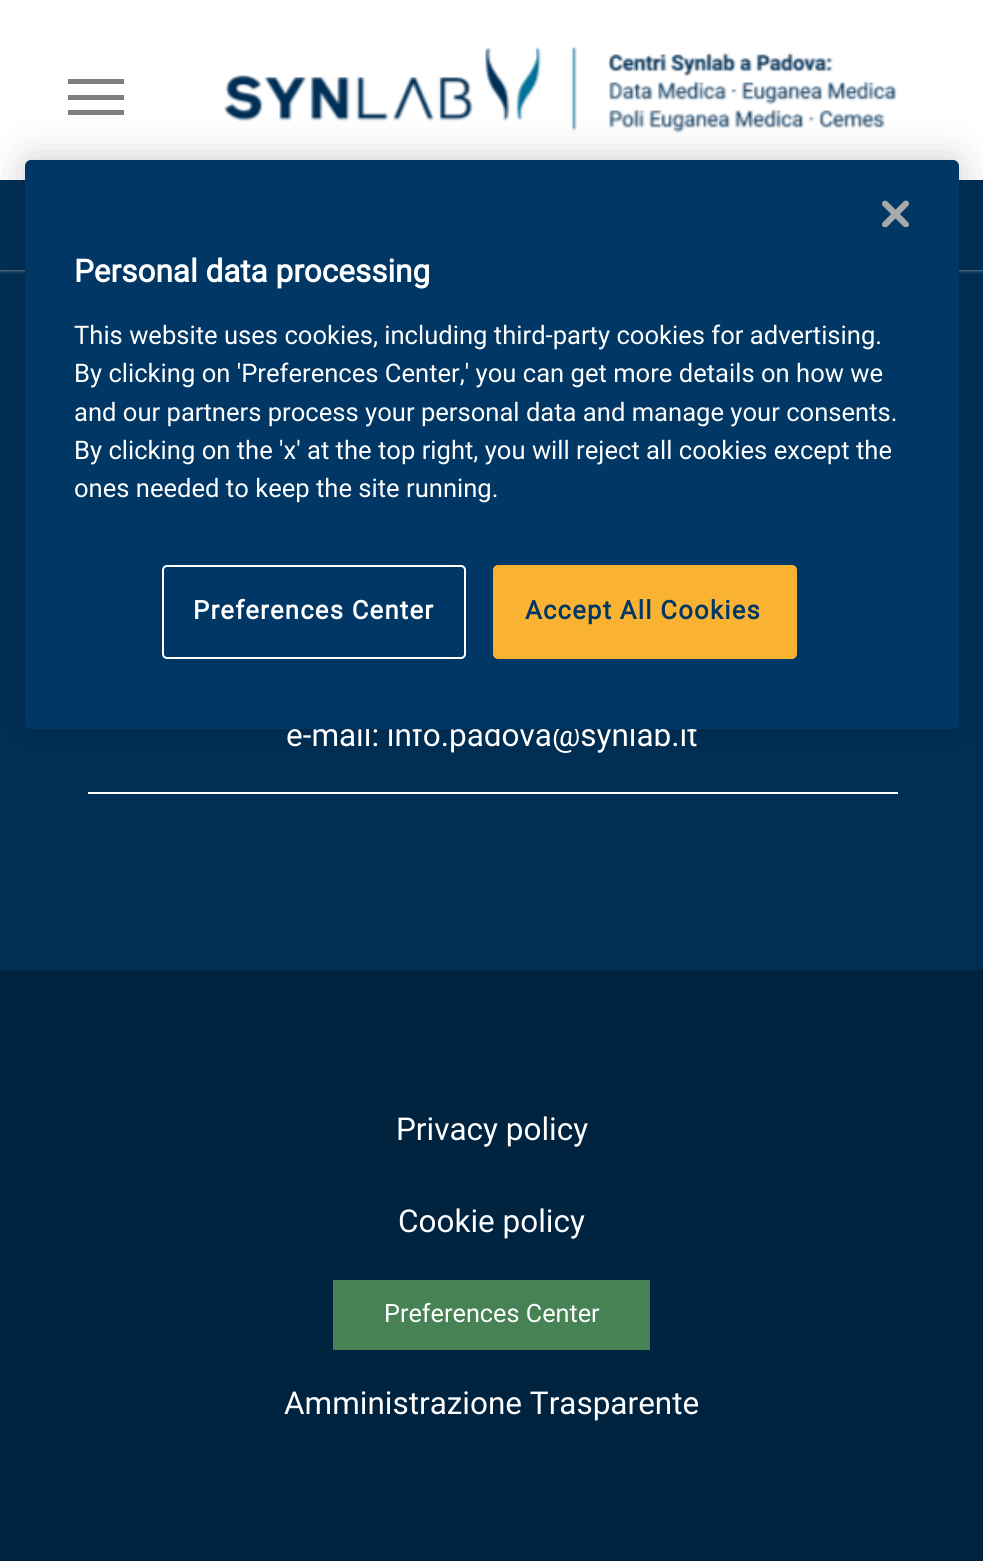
#include <cairo.h>
#include <math.h>
#include <stddef.h>


static void spaced_text(cairo_t *cr, double x, double y, const char *s, double letter, double word) {
    cairo_move_to(cr, x, y);
    while (*s) {
        char ch[5] = {0};
        int n = 0;
        do ch[n++] = *s++; while ((*s & 0xC0) == 0x80);
        cairo_show_text(cr, ch);
        cairo_rel_move_to(cr, letter + word * (*ch == ' '), 0);
    }
}

static void round_rect(cairo_t *cr, double x, double y, double w, double h, double r) {
    cairo_new_sub_path(cr);
    cairo_arc(cr, x + w - r, y + h - r, r, 0, M_PI / 2);
    cairo_arc(cr, x + r, y + h - r, r, M_PI / 2, M_PI);
    cairo_arc(cr, x + r, y + r, r, M_PI, 1.5 * M_PI);
    cairo_arc(cr, x + w - r, y + r, r, 1.5 * M_PI, 2 * M_PI);
    cairo_close_path(cr);
}

static void shadow(cairo_t *cr, double x, double y, double w, double h, double r, double blur, double alpha) {
    cairo_push_group_with_content(cr, CAIRO_CONTENT_ALPHA);
    cairo_set_operator(cr, CAIRO_OPERATOR_SOURCE);
    for (int i = 15; i >= -15 && fmin(w, h) + blur * i / 3 > 0; i -= 2) {
        double e = blur * i / 6;
        cairo_set_source_rgba(cr, 0, 0, 0, alpha * erfc((i - 1) / 8.5) / 2);
        round_rect(cr, x - e, y - e, w + 2 * e, h + 2 * e, fmax(0, fmin(r + e + blur * .6, fmin(w, h) / 2 + e)));
        cairo_fill(cr);
    }
    cairo_pattern_t *soft = cairo_pop_group(cr);
    cairo_mask(cr, soft);
    cairo_pattern_destroy(soft);
}

static void picture(cairo_t *cr, const char *path, double x, double y, double w, double h) {
    cairo_surface_t *image = cairo_image_surface_create_from_png(path);
    cairo_save(cr);
    cairo_set_source_surface(cr, image, x, y);
    cairo_rectangle(cr, x, y, w, h);
    cairo_fill(cr);
    cairo_restore(cr);
    cairo_surface_destroy(image);
}

int main(void) {
    cairo_surface_t *surface = cairo_image_surface_create(CAIRO_FORMAT_RGB24, 983, 1561);
    cairo_t *cr = cairo_create(surface);
    cairo_font_options_t *options = cairo_font_options_create();
    cairo_font_options_set_hint_metrics(options, CAIRO_HINT_METRICS_OFF);
    cairo_font_options_set_hint_style(options, CAIRO_HINT_STYLE_NONE);
    cairo_set_font_options(cr, options);
    cairo_set_miter_limit(cr, 4);
    cairo_set_source_rgb(cr, 0, 0.184, 0.337);
    cairo_paint(cr);
    cairo_set_source_rgb(cr, 0.686, 0.686, 0.686);
    shadow(cr, 0, 0, 983, 270, 0, 2, 1);
    cairo_set_source_rgb(cr, 1, 1, 1);
    cairo_rectangle(cr, 0, 0, 983, 180);
    cairo_fill(cr);
    cairo_set_source_rgb(cr, 0.498, 0.498, 0.498);
    cairo_rectangle(cr, 68, 79, 56, 5);
    cairo_fill(cr);
    cairo_rectangle(cr, 68, 95, 56, 5);
    cairo_fill(cr);
    cairo_rectangle(cr, 68, 110, 56, 5);
    cairo_fill(cr);
    picture(cr, "img1.png", 223, 47, 675, 87);
    cairo_set_source_rgb(cr, 0, 0.184, 0.337);
    cairo_rectangle(cr, 0, 180, 983, 90);
    cairo_fill(cr);
    cairo_set_source_rgb(cr, 0, 0, 0);
    shadow(cr, 25, 160, 934, 569, 6, 20, 0.2);
    cairo_select_font_face(cr, "Roboto", CAIRO_FONT_SLANT_NORMAL, CAIRO_FONT_WEIGHT_NORMAL);
    cairo_set_font_size(cr, 31.5);
    cairo_set_source_rgb(cr, 1, 1, 1);
    cairo_move_to(cr, 286, 746);
    cairo_show_text(cr, "e-mail: info.padova@synlab.it");
    cairo_set_source_rgb(cr, 0, 0.216, 0.396);
    round_rect(cr, 25, 160, 934, 569, 6);
    cairo_fill(cr);
    picture(cr, "img2.png", 882, 200, 27, 27);
    cairo_select_font_face(cr, "Roboto", CAIRO_FONT_SLANT_NORMAL, CAIRO_FONT_WEIGHT_BOLD);
    cairo_set_source_rgb(cr, 1, 1, 1);
    cairo_move_to(cr, 74, 282);
    cairo_show_text(cr, "Personal data processing");
    cairo_select_font_face(cr, "Roboto", CAIRO_FONT_SLANT_NORMAL, CAIRO_FONT_WEIGHT_NORMAL);
    cairo_set_font_size(cr, 25.6);
    cairo_move_to(cr, 74, 344);
    cairo_show_text(cr, "This website uses cookies, including third-party cookies for advertising.");
    cairo_move_to(cr, 74, 382);
    cairo_show_text(cr, "By clicking on 'Preferences Center,' you can get more details on how we");
    cairo_move_to(cr, 74, 421);
    cairo_show_text(cr, "and our partners process your personal data and manage your consents.");
    cairo_move_to(cr, 74, 459);
    cairo_show_text(cr, "By clicking on the 'x' at the top right, you will reject all cookies except the");
    cairo_move_to(cr, 74, 497);
    cairo_show_text(cr, "ones needed to keep the site running.");
    round_rect(cr, 163, 566, 302, 92, 4);
    cairo_stroke(cr);
    cairo_select_font_face(cr, "Roboto", CAIRO_FONT_SLANT_NORMAL, CAIRO_FONT_WEIGHT_BOLD);
    spaced_text(cr, 193, 619, "Preferences Center", 1.25, 0);
    cairo_set_source_rgb(cr, 0.976, 0.698, 0.196);
    round_rect(cr, 494, 566, 302, 92, 4);
    cairo_fill_preserve(cr);
    cairo_stroke(cr);
    cairo_set_source_rgb(cr, 0, 0.216, 0.396);
    spaced_text(cr, 525, 619, "Accept All Cookies", 1.25, 0);
    cairo_set_source_rgb(cr, 1, 1, 1);
    cairo_rectangle(cr, 88, 792, 810, 2);
    cairo_fill(cr);
    cairo_set_source_rgb(cr, 0, 0.137, 0.251);
    cairo_rectangle(cr, 0, 970, 983, 591);
    cairo_fill(cr);
    cairo_select_font_face(cr, "Roboto", CAIRO_FONT_SLANT_NORMAL, CAIRO_FONT_WEIGHT_NORMAL);
    cairo_set_font_size(cr, 31.5);
    cairo_set_source_rgb(cr, 1, 1, 1);
    cairo_move_to(cr, 396, 1140);
    cairo_show_text(cr, "Privacy policy");
    cairo_move_to(cr, 398, 1232);
    cairo_show_text(cr, "Cookie policy");
    cairo_set_source_rgb(cr, 0.275, 0.51, 0.329);
    cairo_rectangle(cr, 333, 1280, 317, 70);
    cairo_fill(cr);
    cairo_set_font_size(cr, 25.25);
    cairo_set_source_rgb(cr, 1, 1, 1);
    cairo_move_to(cr, 384, 1322);
    cairo_show_text(cr, "Preferences Center");
    cairo_set_font_size(cr, 31.5);
    cairo_move_to(cr, 284, 1414);
    cairo_show_text(cr, "Amministrazione Trasparente");
    cairo_surface_write_to_png(surface, "page.png");
    cairo_font_options_destroy(options);
    cairo_destroy(cr);
    cairo_surface_destroy(surface);
    return 0;
}
